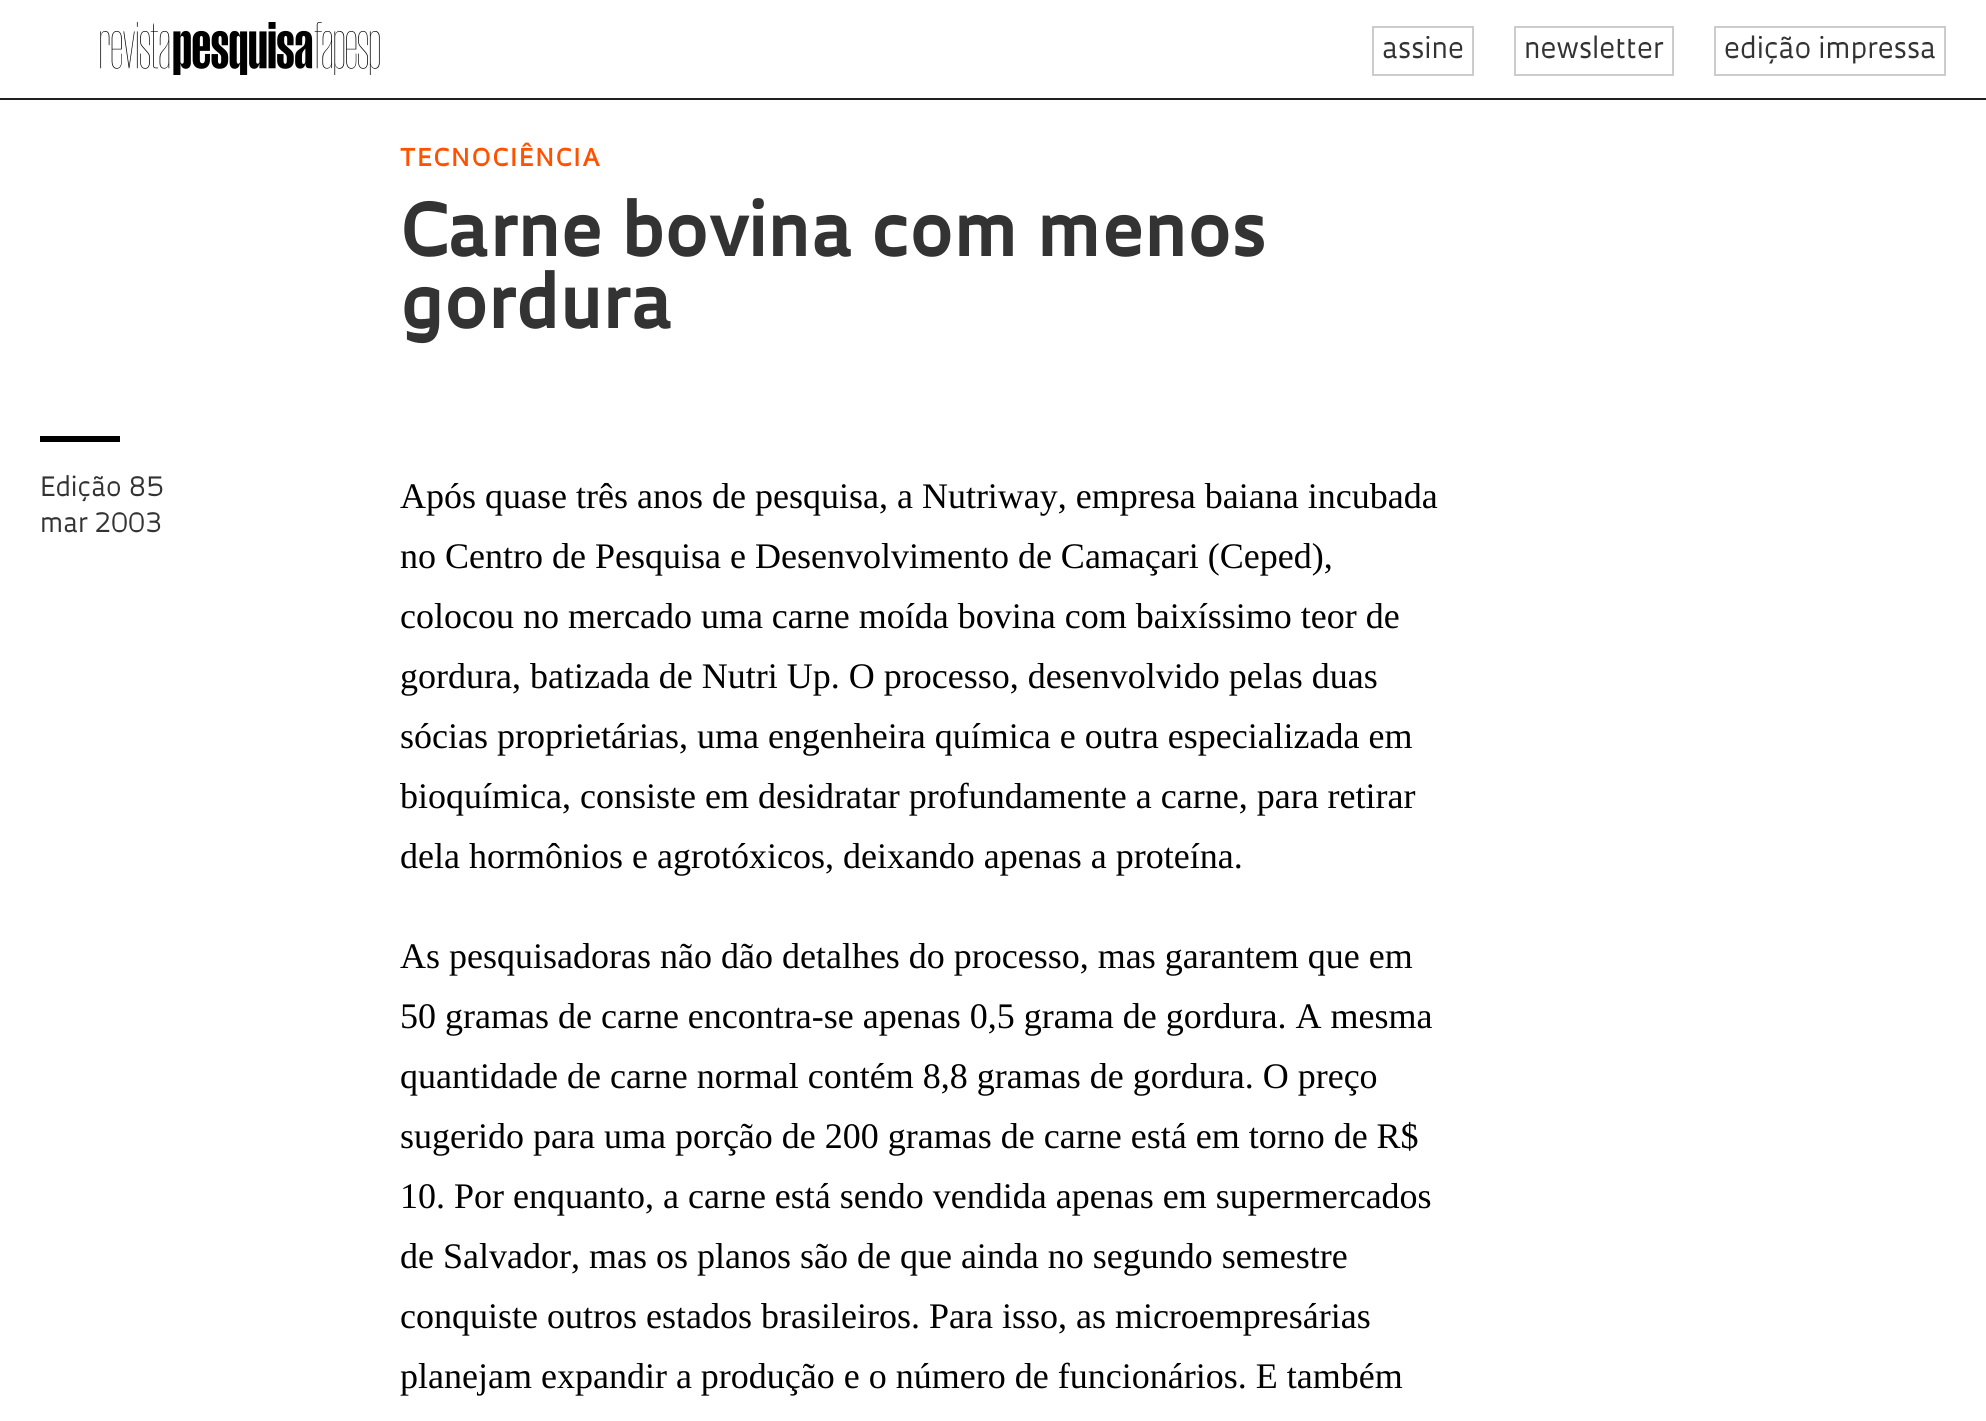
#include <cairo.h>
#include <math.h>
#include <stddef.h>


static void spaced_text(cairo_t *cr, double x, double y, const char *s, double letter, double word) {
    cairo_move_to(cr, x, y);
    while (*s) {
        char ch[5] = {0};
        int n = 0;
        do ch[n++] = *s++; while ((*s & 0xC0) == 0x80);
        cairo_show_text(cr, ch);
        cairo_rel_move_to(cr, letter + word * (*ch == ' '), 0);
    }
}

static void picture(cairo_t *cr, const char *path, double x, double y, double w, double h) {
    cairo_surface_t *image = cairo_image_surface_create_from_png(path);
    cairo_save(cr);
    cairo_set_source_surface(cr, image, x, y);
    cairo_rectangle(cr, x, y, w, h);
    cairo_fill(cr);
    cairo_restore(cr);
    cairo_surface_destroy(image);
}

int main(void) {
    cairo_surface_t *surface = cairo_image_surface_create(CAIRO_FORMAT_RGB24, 1986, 1421);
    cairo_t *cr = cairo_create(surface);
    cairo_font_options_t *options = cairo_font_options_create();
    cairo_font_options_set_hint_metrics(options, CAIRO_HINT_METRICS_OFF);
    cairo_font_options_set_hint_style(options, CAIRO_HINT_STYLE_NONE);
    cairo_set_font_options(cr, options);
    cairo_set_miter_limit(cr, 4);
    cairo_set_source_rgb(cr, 1, 1, 1);
    cairo_paint(cr);
    cairo_set_source_rgb(cr, 0.137, 0.122, 0.125);
    cairo_rectangle(cr, 0, 98, 1986, 2);
    cairo_fill(cr);
    picture(cr, "img1.png", 100, 22, 280, 53);
    cairo_rectangle(cr, 1373, 27, 100, 48);
    cairo_set_source_rgb(cr, 0.8, 0.8, 0.8);
    cairo_stroke(cr);
    cairo_select_font_face(cr, "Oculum", CAIRO_FONT_SLANT_NORMAL, CAIRO_FONT_WEIGHT_NORMAL);
    cairo_set_font_size(cr, 28);
    cairo_set_source_rgb(cr, 0.2, 0.2, 0.2);
    cairo_move_to(cr, 1382, 58);
    cairo_show_text(cr, "assine");
    cairo_rectangle(cr, 1515, 27, 158, 48);
    cairo_set_source_rgb(cr, 0.8, 0.8, 0.8);
    cairo_stroke(cr);
    cairo_set_source_rgb(cr, 0.2, 0.2, 0.2);
    cairo_move_to(cr, 1524, 58);
    cairo_show_text(cr, "newsletter");
    cairo_rectangle(cr, 1715, 27, 230, 48);
    cairo_set_source_rgb(cr, 0.8, 0.8, 0.8);
    cairo_stroke(cr);
    cairo_set_source_rgb(cr, 0.2, 0.2, 0.2);
    cairo_move_to(cr, 1724, 58);
    cairo_show_text(cr, "edição impressa");
    cairo_select_font_face(cr, "Oculum SemiBold", CAIRO_FONT_SLANT_NORMAL, CAIRO_FONT_WEIGHT_NORMAL);
    cairo_set_font_size(cr, 24);
    cairo_set_source_rgb(cr, 1, 0.322, 0);
    spaced_text(cr, 400, 166, "TECNOCIÊNCIA", 2, 0);
    cairo_select_font_face(cr, "Oculum", CAIRO_FONT_SLANT_NORMAL, CAIRO_FONT_WEIGHT_BOLD);
    cairo_set_font_size(cr, 72);
    cairo_set_source_rgb(cr, 0.2, 0.2, 0.2);
    cairo_move_to(cr, 400, 256);
    cairo_show_text(cr, "Carne bovina com menos");
    cairo_move_to(cr, 400, 328);
    cairo_show_text(cr, "gordura");
    cairo_set_source_rgb(cr, 0, 0, 0);
    cairo_rectangle(cr, 40, 436, 80, 6);
    cairo_fill(cr);
    cairo_select_font_face(cr, "Oculum", CAIRO_FONT_SLANT_NORMAL, CAIRO_FONT_WEIGHT_NORMAL);
    cairo_set_font_size(cr, 26);
    cairo_set_source_rgb(cr, 0.2, 0.2, 0.2);
    cairo_move_to(cr, 40, 496);
    cairo_show_text(cr, "Edição 85");
    cairo_move_to(cr, 40, 532);
    cairo_show_text(cr, "mar 2003");
    cairo_select_font_face(cr, "Liberation Serif", CAIRO_FONT_SLANT_NORMAL, CAIRO_FONT_WEIGHT_NORMAL);
    cairo_set_font_size(cr, 36);
    cairo_set_source_rgb(cr, 0, 0, 0);
    cairo_move_to(cr, 400, 508);
    cairo_show_text(cr, "Após quase três anos de pesquisa, a Nutriway, empresa baiana incubada");
    cairo_move_to(cr, 400, 568);
    cairo_show_text(cr, "no Centro de Pesquisa e Desenvolvimento de Camaçari (Ceped),");
    cairo_move_to(cr, 400, 628);
    cairo_show_text(cr, "colocou no mercado uma carne moída bovina com baixíssimo teor de");
    cairo_move_to(cr, 400, 688);
    cairo_show_text(cr, "gordura, batizada de Nutri Up. O processo, desenvolvido pelas duas");
    cairo_move_to(cr, 400, 748);
    cairo_show_text(cr, "sócias proprietárias, uma engenheira química e outra especializada em");
    cairo_move_to(cr, 400, 808);
    cairo_show_text(cr, "bioquímica, consiste em desidratar profundamente a carne, para retirar");
    cairo_move_to(cr, 400, 868);
    cairo_show_text(cr, "dela hormônios e agrotóxicos, deixando apenas a proteína.");
    cairo_move_to(cr, 400, 968);
    cairo_show_text(cr, "As pesquisadoras não dão detalhes do processo, mas garantem que em");
    cairo_move_to(cr, 400, 1028);
    cairo_show_text(cr, "50 gramas de carne encontra-se apenas 0,5 grama de gordura. A mesma");
    cairo_move_to(cr, 400, 1088);
    cairo_show_text(cr, "quantidade de carne normal contém 8,8 gramas de gordura. O preço");
    cairo_move_to(cr, 400, 1148);
    cairo_show_text(cr, "sugerido para uma porção de 200 gramas de carne está em torno de R$");
    cairo_move_to(cr, 400, 1208);
    cairo_show_text(cr, "10. Por enquanto, a carne está sendo vendida apenas em supermercados");
    cairo_move_to(cr, 400, 1268);
    cairo_show_text(cr, "de Salvador, mas os planos são de que ainda no segundo semestre");
    cairo_move_to(cr, 400, 1328);
    cairo_show_text(cr, "conquiste outros estados brasileiros. Para isso, as microempresárias");
    cairo_move_to(cr, 400, 1388);
    cairo_show_text(cr, "planejam expandir a produção e o número de funcionários. E também");
    cairo_surface_write_to_png(surface, "page.png");
    cairo_font_options_destroy(options);
    cairo_destroy(cr);
    cairo_surface_destroy(surface);
    return 0;
}
